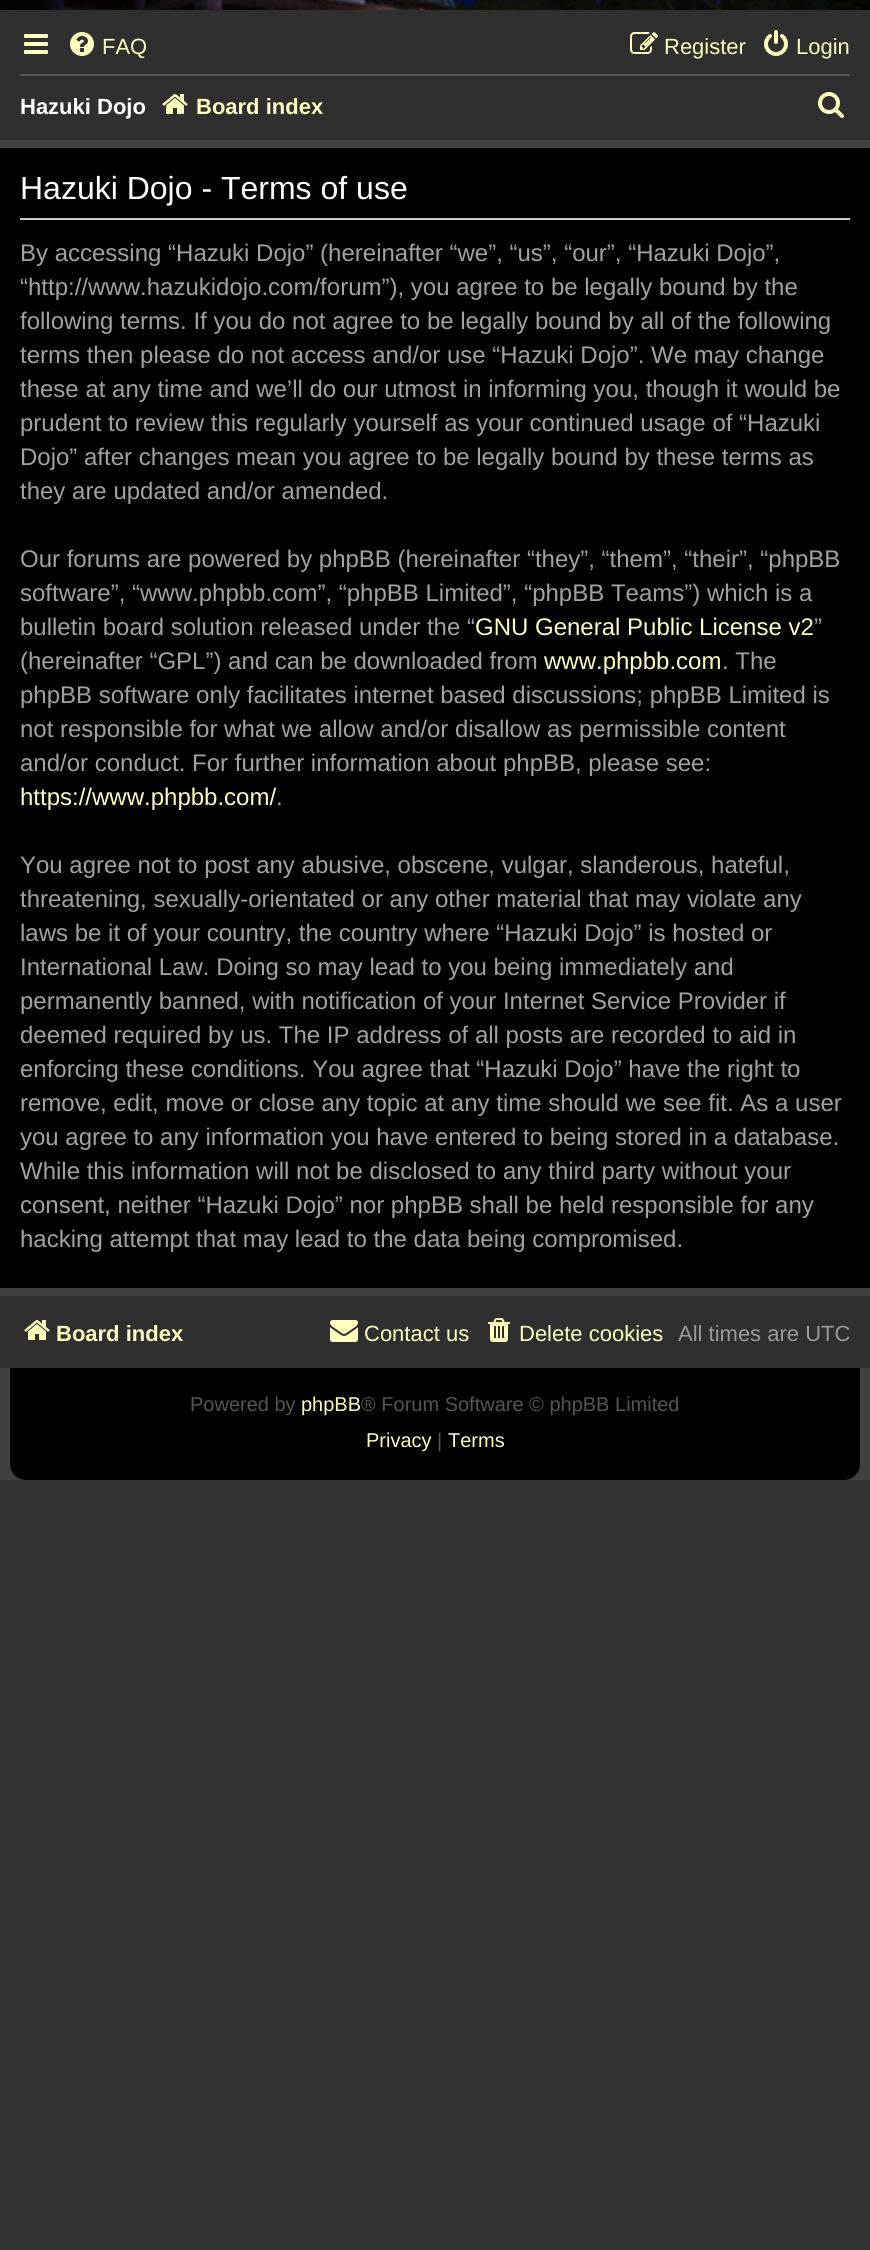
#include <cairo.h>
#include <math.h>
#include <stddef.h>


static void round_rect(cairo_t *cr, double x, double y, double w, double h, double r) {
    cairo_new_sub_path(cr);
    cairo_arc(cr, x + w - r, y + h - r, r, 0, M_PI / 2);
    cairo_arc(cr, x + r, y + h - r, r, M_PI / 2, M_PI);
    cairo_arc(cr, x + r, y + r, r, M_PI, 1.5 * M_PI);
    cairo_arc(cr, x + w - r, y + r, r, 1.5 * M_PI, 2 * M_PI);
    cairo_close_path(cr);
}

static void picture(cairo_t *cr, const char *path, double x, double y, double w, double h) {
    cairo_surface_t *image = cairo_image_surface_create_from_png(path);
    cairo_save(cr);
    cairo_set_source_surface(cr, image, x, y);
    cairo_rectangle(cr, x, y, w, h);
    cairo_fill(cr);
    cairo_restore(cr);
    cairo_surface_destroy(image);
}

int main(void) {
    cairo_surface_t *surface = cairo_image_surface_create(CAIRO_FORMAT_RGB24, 870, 2250);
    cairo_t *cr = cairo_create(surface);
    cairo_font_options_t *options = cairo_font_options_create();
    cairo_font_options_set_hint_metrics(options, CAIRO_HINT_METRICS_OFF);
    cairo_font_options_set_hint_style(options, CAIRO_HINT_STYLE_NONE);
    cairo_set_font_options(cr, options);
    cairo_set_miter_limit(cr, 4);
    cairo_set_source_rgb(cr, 0.2, 0.2, 0.2);
    cairo_paint(cr);
    cairo_set_source_rgb(cr, 0.251, 0.251, 0.251);
    cairo_rectangle(cr, 0, 140, 870, 1340);
    cairo_fill(cr);
    picture(cr, "img1.png", 0, 0, 870, 10);
    cairo_set_source_rgb(cr, 0.188, 0.184, 0.184);
    cairo_rectangle(cr, 0, 10, 870, 130);
    cairo_fill(cr);
    picture(cr, "img2.png", 24, 34, 24, 20);
    picture(cr, "img3.png", 70, 32, 24, 24);
    cairo_select_font_face(cr, "Liberation Sans", CAIRO_FONT_SLANT_NORMAL, CAIRO_FONT_WEIGHT_NORMAL);
    cairo_set_font_size(cr, 22);
    cairo_set_source_rgb(cr, 1, 0.996, 0.745);
    cairo_move_to(cr, 102, 54);
    cairo_show_text(cr, "FAQ");
    picture(cr, "img4.png", 630, 32, 28, 22);
    cairo_move_to(cr, 664, 54);
    cairo_show_text(cr, "Register");
    picture(cr, "img5.png", 764, 30, 24, 26);
    cairo_move_to(cr, 796, 54);
    cairo_show_text(cr, "Login");
    cairo_set_source_rgb(cr, 0.333, 0.333, 0.333);
    cairo_rectangle(cr, 20, 74, 830, 2);
    cairo_fill(cr);
    cairo_select_font_face(cr, "Liberation Sans", CAIRO_FONT_SLANT_NORMAL, CAIRO_FONT_WEIGHT_BOLD);
    cairo_set_source_rgb(cr, 1, 1, 1);
    cairo_move_to(cr, 20, 114);
    cairo_show_text(cr, "Hazuki Dojo");
    picture(cr, "img6.png", 162, 94, 26, 20);
    cairo_set_source_rgb(cr, 1, 0.996, 0.745);
    cairo_move_to(cr, 196, 114);
    cairo_show_text(cr, "Board index");
    picture(cr, "img7.png", 818, 92, 26, 26);
    cairo_set_source_rgb(cr, 0, 0, 0);
    cairo_rectangle(cr, 0, 148, 870, 1140);
    cairo_fill(cr);
    cairo_set_source_rgb(cr, 0.8, 0.8, 0.8);
    cairo_rectangle(cr, 20, 218, 830, 2);
    cairo_fill(cr);
    cairo_select_font_face(cr, "Liberation Sans", CAIRO_FONT_SLANT_NORMAL, CAIRO_FONT_WEIGHT_NORMAL);
    cairo_set_font_size(cr, 32);
    cairo_set_source_rgb(cr, 1, 1, 1);
    cairo_move_to(cr, 20, 199);
    cairo_show_text(cr, "Hazuki Dojo - Terms of use");
    cairo_set_font_size(cr, 24);
    cairo_set_source_rgb(cr, 0.635, 0.635, 0.635);
    cairo_move_to(cr, 20, 261);
    cairo_show_text(cr, "By accessing “Hazuki Dojo” (hereinafter “we”, “us”, “our”, “Hazuki Dojo”,");
    cairo_move_to(cr, 20, 295);
    cairo_show_text(cr, "“http://www.hazukidojo.com/forum”), you agree to be legally bound by the");
    cairo_move_to(cr, 20, 329);
    cairo_show_text(cr, "following terms. If you do not agree to be legally bound by all of the following");
    cairo_move_to(cr, 20, 363);
    cairo_show_text(cr, "terms then please do not access and/or use “Hazuki Dojo”. We may change");
    cairo_move_to(cr, 20, 397);
    cairo_show_text(cr, "these at any time and we’ll do our utmost in informing you, though it would be");
    cairo_move_to(cr, 20, 431);
    cairo_show_text(cr, "prudent to review this regularly yourself as your continued usage of “Hazuki");
    cairo_move_to(cr, 20, 465);
    cairo_show_text(cr, "Dojo” after changes mean you agree to be legally bound by these terms as");
    cairo_move_to(cr, 20, 499);
    cairo_show_text(cr, "they are updated and/or amended.");
    cairo_move_to(cr, 20, 567);
    cairo_show_text(cr, "Our forums are powered by phpBB (hereinafter “they”, “them”, “their”, “phpBB");
    cairo_move_to(cr, 20, 601);
    cairo_show_text(cr, "software”, “www.phpbb.com”, “phpBB Limited”, “phpBB Teams”) which is a");
    cairo_move_to(cr, 20, 635);
    cairo_show_text(cr, "bulletin board solution released under the “");
    cairo_set_source_rgb(cr, 1, 0.996, 0.745);
    cairo_move_to(cr, 475, 635);
    cairo_show_text(cr, "GNU General Public License v2");
    cairo_set_source_rgb(cr, 0.635, 0.635, 0.635);
    cairo_move_to(cr, 814, 635);
    cairo_show_text(cr, "”");
    cairo_move_to(cr, 20, 669);
    cairo_show_text(cr, "(hereinafter “GPL”) and can be downloaded from");
    cairo_set_source_rgb(cr, 1, 0.996, 0.745);
    cairo_move_to(cr, 544, 669);
    cairo_show_text(cr, "www.phpbb.com");
    cairo_set_source_rgb(cr, 0.635, 0.635, 0.635);
    cairo_move_to(cr, 722, 669);
    cairo_show_text(cr, ". The");
    cairo_move_to(cr, 20, 703);
    cairo_show_text(cr, "phpBB software only facilitates internet based discussions; phpBB Limited is");
    cairo_move_to(cr, 20, 737);
    cairo_show_text(cr, "not responsible for what we allow and/or disallow as permissible content");
    cairo_move_to(cr, 20, 771);
    cairo_show_text(cr, "and/or conduct. For further information about phpBB, please see:");
    cairo_set_source_rgb(cr, 1, 0.996, 0.745);
    cairo_move_to(cr, 20, 805);
    cairo_show_text(cr, "https://www.phpbb.com/");
    cairo_set_source_rgb(cr, 0.635, 0.635, 0.635);
    cairo_move_to(cr, 276, 805);
    cairo_show_text(cr, ".");
    cairo_move_to(cr, 20, 873);
    cairo_show_text(cr, "You agree not to post any abusive, obscene, vulgar, slanderous, hateful,");
    cairo_move_to(cr, 20, 907);
    cairo_show_text(cr, "threatening, sexually-orientated or any other material that may violate any");
    cairo_move_to(cr, 20, 941);
    cairo_show_text(cr, "laws be it of your country, the country where “Hazuki Dojo” is hosted or");
    cairo_move_to(cr, 20, 975);
    cairo_show_text(cr, "International Law. Doing so may lead to you being immediately and");
    cairo_move_to(cr, 20, 1009);
    cairo_show_text(cr, "permanently banned, with notification of your Internet Service Provider if");
    cairo_move_to(cr, 20, 1043);
    cairo_show_text(cr, "deemed required by us. The IP address of all posts are recorded to aid in");
    cairo_move_to(cr, 20, 1077);
    cairo_show_text(cr, "enforcing these conditions. You agree that “Hazuki Dojo” have the right to");
    cairo_move_to(cr, 20, 1111);
    cairo_show_text(cr, "remove, edit, move or close any topic at any time should we see fit. As a user");
    cairo_move_to(cr, 20, 1145);
    cairo_show_text(cr, "you agree to any information you have entered to being stored in a database.");
    cairo_move_to(cr, 20, 1179);
    cairo_show_text(cr, "While this information will not be disclosed to any third party without your");
    cairo_move_to(cr, 20, 1213);
    cairo_show_text(cr, "consent, neither “Hazuki Dojo” nor phpBB shall be held responsible for any");
    cairo_move_to(cr, 20, 1247);
    cairo_show_text(cr, "hacking attempt that may lead to the data being compromised.");
    cairo_set_source_rgb(cr, 0, 0, 0);
    round_rect(cr, 10, 1296, 850, 184, 16);
    cairo_fill(cr);
    cairo_set_source_rgb(cr, 0.188, 0.184, 0.184);
    cairo_rectangle(cr, 0, 1296, 870, 72);
    cairo_fill(cr);
    picture(cr, "img6.png", 24, 1320, 26, 20);
    cairo_select_font_face(cr, "Liberation Sans", CAIRO_FONT_SLANT_NORMAL, CAIRO_FONT_WEIGHT_BOLD);
    cairo_set_font_size(cr, 22);
    cairo_set_source_rgb(cr, 1, 0.996, 0.745);
    cairo_move_to(cr, 56, 1341);
    cairo_show_text(cr, "Board index");
    picture(cr, "img8.png", 330, 1320, 28, 22);
    cairo_select_font_face(cr, "Liberation Sans", CAIRO_FONT_SLANT_NORMAL, CAIRO_FONT_WEIGHT_NORMAL);
    cairo_move_to(cr, 364, 1341);
    cairo_show_text(cr, "Contact us");
    picture(cr, "img9.png", 488, 1318, 22, 24);
    cairo_move_to(cr, 519, 1341);
    cairo_show_text(cr, "Delete cookies");
    cairo_set_source_rgb(cr, 0.6, 0.6, 0.6);
    cairo_move_to(cr, 678, 1341);
    cairo_show_text(cr, "All times are UTC");
    cairo_set_font_size(cr, 20);
    cairo_set_source_rgb(cr, 0.333, 0.333, 0.333);
    cairo_move_to(cr, 190, 1411);
    cairo_show_text(cr, "Powered by");
    cairo_set_source_rgb(cr, 1, 0.996, 0.745);
    cairo_move_to(cr, 301, 1411);
    cairo_show_text(cr, "phpBB");
    cairo_set_source_rgb(cr, 0.333, 0.333, 0.333);
    cairo_move_to(cr, 361, 1411);
    cairo_show_text(cr, "® Forum Software © phpBB Limited");
    cairo_set_source_rgb(cr, 1, 0.996, 0.745);
    cairo_move_to(cr, 366, 1447);
    cairo_show_text(cr, "Privacy");
    cairo_set_source_rgb(cr, 0.333, 0.333, 0.333);
    cairo_move_to(cr, 437, 1447);
    cairo_show_text(cr, "|");
    cairo_set_source_rgb(cr, 1, 0.996, 0.745);
    cairo_move_to(cr, 448, 1447);
    cairo_show_text(cr, "Terms");
    cairo_surface_write_to_png(surface, "page.png");
    cairo_font_options_destroy(options);
    cairo_destroy(cr);
    cairo_surface_destroy(surface);
    return 0;
}
